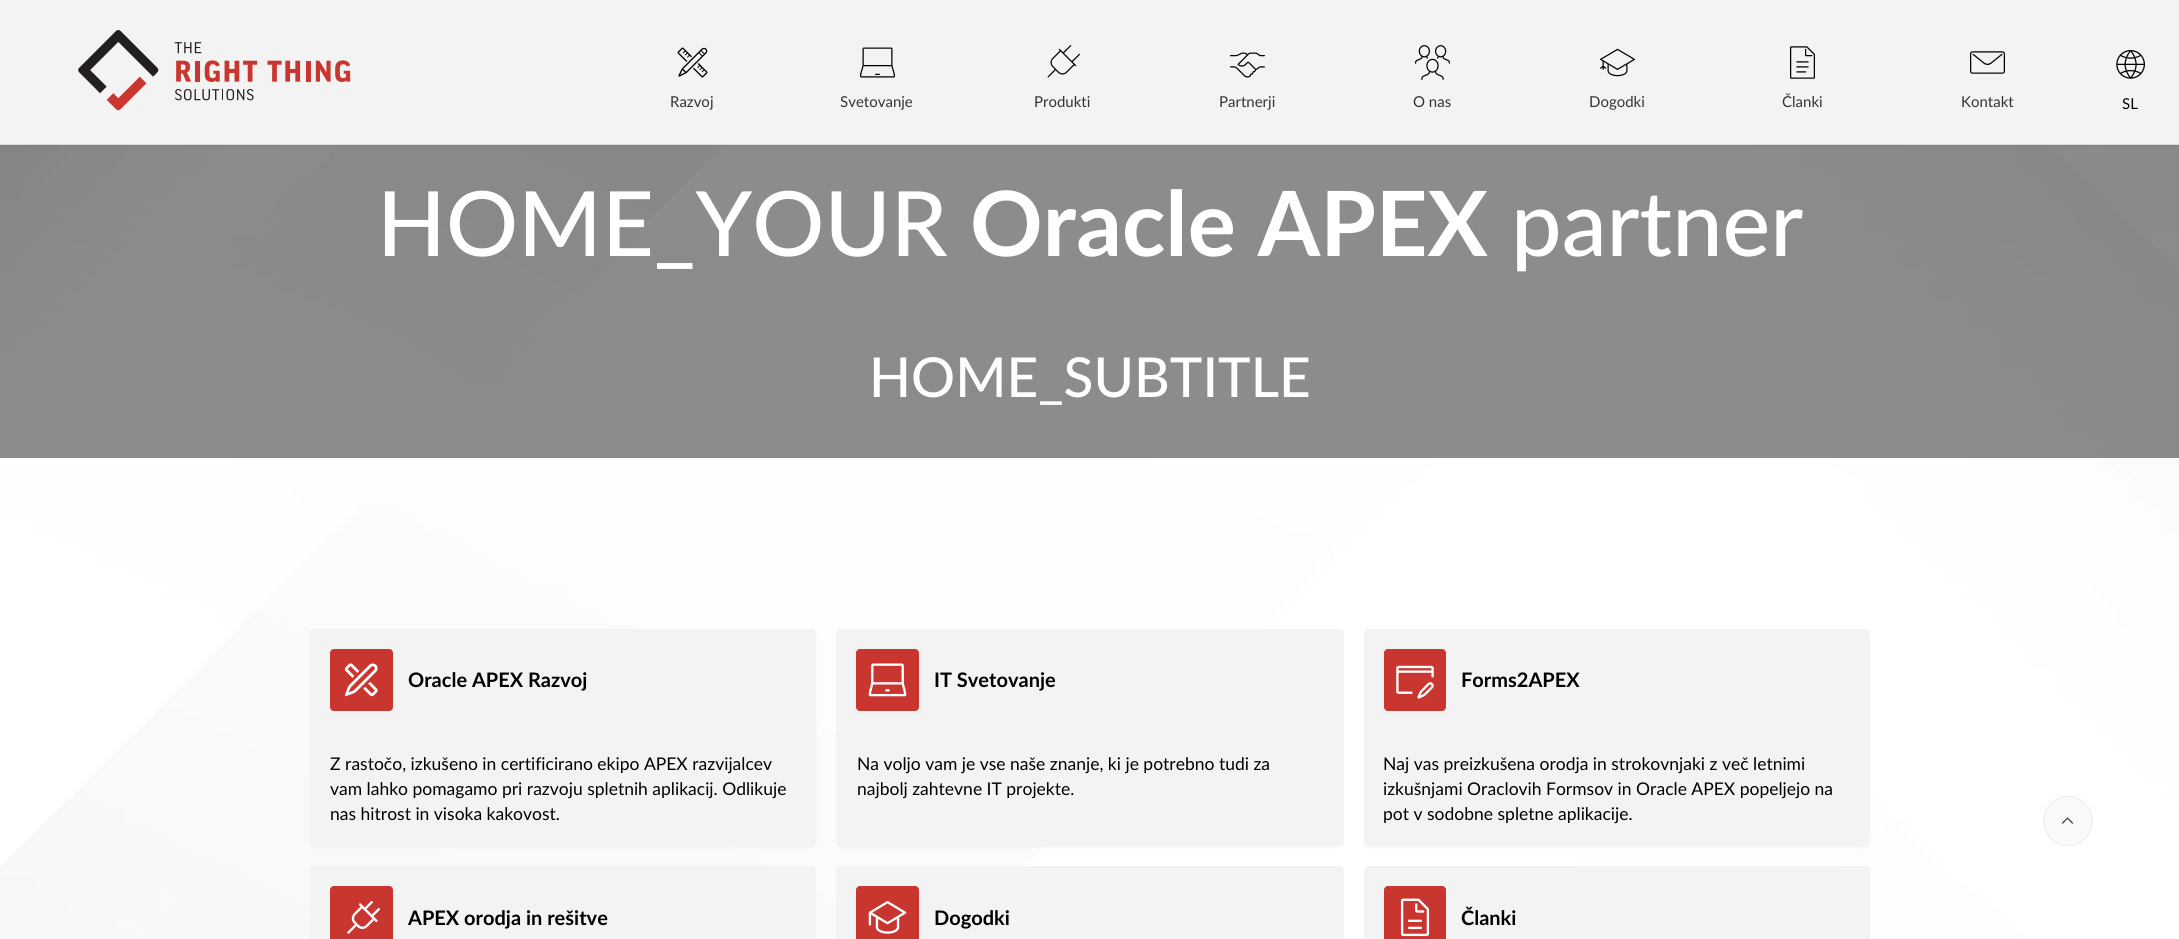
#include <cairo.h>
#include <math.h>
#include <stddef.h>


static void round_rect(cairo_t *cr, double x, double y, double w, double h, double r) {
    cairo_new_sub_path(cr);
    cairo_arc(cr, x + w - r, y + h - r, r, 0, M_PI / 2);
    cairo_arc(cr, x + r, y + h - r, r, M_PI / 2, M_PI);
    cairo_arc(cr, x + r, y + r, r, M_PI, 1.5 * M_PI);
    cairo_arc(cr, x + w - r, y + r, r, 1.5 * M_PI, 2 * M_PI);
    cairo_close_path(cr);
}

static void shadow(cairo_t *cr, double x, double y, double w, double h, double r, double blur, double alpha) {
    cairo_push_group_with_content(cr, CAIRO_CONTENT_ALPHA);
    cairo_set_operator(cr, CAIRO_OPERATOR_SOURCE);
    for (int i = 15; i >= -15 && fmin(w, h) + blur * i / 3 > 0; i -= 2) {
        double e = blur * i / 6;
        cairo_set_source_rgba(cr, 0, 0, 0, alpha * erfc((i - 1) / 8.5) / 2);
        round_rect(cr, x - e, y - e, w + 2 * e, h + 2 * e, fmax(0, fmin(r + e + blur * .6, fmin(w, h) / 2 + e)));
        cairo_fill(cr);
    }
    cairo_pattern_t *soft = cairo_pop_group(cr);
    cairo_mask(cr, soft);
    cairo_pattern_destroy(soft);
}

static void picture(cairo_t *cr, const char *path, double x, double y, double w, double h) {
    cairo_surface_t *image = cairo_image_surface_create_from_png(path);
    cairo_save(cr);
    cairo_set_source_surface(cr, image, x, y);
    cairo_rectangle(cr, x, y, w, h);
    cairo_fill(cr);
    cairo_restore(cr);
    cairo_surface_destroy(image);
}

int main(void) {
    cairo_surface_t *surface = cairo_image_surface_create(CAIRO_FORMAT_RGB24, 2179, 939);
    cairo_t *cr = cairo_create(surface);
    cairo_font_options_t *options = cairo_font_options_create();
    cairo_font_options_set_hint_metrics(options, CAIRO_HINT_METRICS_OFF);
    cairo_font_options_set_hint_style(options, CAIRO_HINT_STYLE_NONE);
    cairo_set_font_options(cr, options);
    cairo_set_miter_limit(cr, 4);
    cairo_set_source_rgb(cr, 1, 1, 1);
    cairo_paint(cr);
    picture(cr, "img1.png", 0, 145, 2179, 794);
    cairo_set_source_rgba(cr, 0.2, 0.2, 0.2, 0.56);
    cairo_rectangle(cr, 0, 145, 2179, 313);
    cairo_fill(cr);
    cairo_set_source_rgb(cr, 0, 0, 0);
    shadow(cr, 3, 5, 2175, 140, 0, 2.5, 0.1);
    cairo_set_source_rgb(cr, 0.953, 0.953, 0.953);
    cairo_rectangle(cr, 0, 0, 2179, 144);
    cairo_fill(cr);
    cairo_set_source_rgb(cr, 0.859, 0.859, 0.859);
    cairo_rectangle(cr, 0, 144, 2179, 1);
    cairo_fill(cr);
    picture(cr, "img2.png", 78, 30, 273, 81);
    picture(cr, "img3.png", 677, 47, 31, 31);
    cairo_select_font_face(cr, "Lato", CAIRO_FONT_SLANT_NORMAL, CAIRO_FONT_WEIGHT_NORMAL);
    cairo_set_font_size(cr, 15);
    cairo_set_source_rgb(cr, 0.2, 0.2, 0.2);
    cairo_move_to(cr, 670, 107);
    cairo_show_text(cr, "Razvoj");
    picture(cr, "img4.png", 860, 47, 35, 31);
    cairo_move_to(cr, 840, 107);
    cairo_show_text(cr, "Svetovanje");
    picture(cr, "img5.png", 1047, 45, 33, 33);
    cairo_move_to(cr, 1034, 107);
    cairo_show_text(cr, "Produkti");
    picture(cr, "img6.png", 1230, 52, 35, 26);
    cairo_move_to(cr, 1219, 107);
    cairo_show_text(cr, "Partnerji");
    picture(cr, "img7.png", 1415, 45, 35, 35);
    cairo_move_to(cr, 1413, 107);
    cairo_show_text(cr, "O nas");
    picture(cr, "img8.png", 1600, 48, 35, 29);
    cairo_move_to(cr, 1589, 107);
    cairo_show_text(cr, "Dogodki");
    picture(cr, "img9.png", 1790, 46, 25, 33);
    cairo_move_to(cr, 1782, 107);
    cairo_show_text(cr, "Članki");
    picture(cr, "img10.png", 1970, 51, 35, 23);
    cairo_move_to(cr, 1961, 107);
    cairo_show_text(cr, "Kontakt");
    picture(cr, "img11.png", 2116, 50, 29, 29);
    cairo_set_source_rgb(cr, 0, 0, 0);
    cairo_move_to(cr, 2122, 109);
    cairo_show_text(cr, "SL");
    cairo_select_font_face(cr, "Lato Medium", CAIRO_FONT_SLANT_NORMAL, CAIRO_FONT_WEIGHT_NORMAL);
    cairo_set_font_size(cr, 90);
    cairo_set_source_rgb(cr, 1, 1, 1);
    cairo_move_to(cr, 377, 256);
    cairo_show_text(cr, "HOME_YOUR");
    cairo_select_font_face(cr, "Lato", CAIRO_FONT_SLANT_NORMAL, CAIRO_FONT_WEIGHT_BOLD);
    cairo_move_to(cr, 970, 256);
    cairo_show_text(cr, "Oracle APEX");
    cairo_select_font_face(cr, "Lato Medium", CAIRO_FONT_SLANT_NORMAL, CAIRO_FONT_WEIGHT_NORMAL);
    cairo_move_to(cr, 1511, 256);
    cairo_show_text(cr, "partner");
    cairo_set_font_size(cr, 55);
    cairo_move_to(cr, 869, 397);
    cairo_show_text(cr, "HOME_SUBTITLE");
    cairo_set_source_rgb(cr, 0, 0, 0);
    shadow(cr, 313, 634, 501, 212, 1, 2.5, 0.07);
    cairo_set_source_rgb(cr, 0.953, 0.953, 0.953);
    cairo_new_path(cr);
    cairo_move_to(cr, 314, 629);
    cairo_line_to(cr, 812, 629);
    cairo_curve_to(cr, 814, 629, 816, 631, 816, 633);
    cairo_line_to(cr, 816, 731);
    cairo_line_to(cr, 310, 731);
    cairo_line_to(cr, 310, 633);
    cairo_curve_to(cr, 310, 631, 312, 629, 314, 629);
    cairo_close_path(cr);
    cairo_fill(cr);
    cairo_set_source_rgb(cr, 0.788, 0.208, 0.184);
    round_rect(cr, 330, 649, 63, 62, 4);
    cairo_fill(cr);
    picture(cr, "img12.png", 344, 663, 34, 34);
    cairo_select_font_face(cr, "Lato", CAIRO_FONT_SLANT_NORMAL, CAIRO_FONT_WEIGHT_BOLD);
    cairo_set_font_size(cr, 20);
    cairo_set_source_rgb(cr, 0, 0, 0);
    cairo_move_to(cr, 408, 687);
    cairo_show_text(cr, "Oracle APEX Razvoj");
    cairo_set_source_rgb(cr, 0.953, 0.953, 0.953);
    cairo_new_path(cr);
    cairo_move_to(cr, 310, 731);
    cairo_line_to(cr, 816, 731);
    cairo_line_to(cr, 816, 842);
    cairo_curve_to(cr, 816, 844, 814, 846, 812, 846);
    cairo_line_to(cr, 314, 846);
    cairo_curve_to(cr, 312, 846, 310, 844, 310, 842);
    cairo_close_path(cr);
    cairo_fill(cr);
    cairo_select_font_face(cr, "Lato", CAIRO_FONT_SLANT_NORMAL, CAIRO_FONT_WEIGHT_NORMAL);
    cairo_set_font_size(cr, 17.5);
    cairo_set_source_rgb(cr, 0, 0, 0);
    cairo_move_to(cr, 330, 770);
    cairo_show_text(cr, "Z rastočo, izkušeno in certificirano ekipo APEX razvijalcev");
    cairo_move_to(cr, 330, 795);
    cairo_show_text(cr, "vam lahko pomagamo pri razvoju spletnih aplikacij. Odlikuje");
    cairo_move_to(cr, 330, 820);
    cairo_show_text(cr, "nas hitrost in visoka kakovost.");
    cairo_set_source_rgb(cr, 0, 0, 0);
    shadow(cr, 839, 634, 502, 212, 1, 2.5, 0.07);
    cairo_set_source_rgb(cr, 0.953, 0.953, 0.953);
    cairo_new_path(cr);
    cairo_move_to(cr, 840, 629);
    cairo_line_to(cr, 1340, 629);
    cairo_curve_to(cr, 1342, 629, 1344, 631, 1344, 633);
    cairo_line_to(cr, 1344, 731);
    cairo_line_to(cr, 836, 731);
    cairo_line_to(cr, 836, 633);
    cairo_curve_to(cr, 836, 631, 838, 629, 840, 629);
    cairo_close_path(cr);
    cairo_fill(cr);
    cairo_set_source_rgb(cr, 0.788, 0.208, 0.184);
    round_rect(cr, 856, 649, 63, 62, 4);
    cairo_fill(cr);
    picture(cr, "img13.png", 868, 663, 39, 34);
    cairo_select_font_face(cr, "Lato", CAIRO_FONT_SLANT_NORMAL, CAIRO_FONT_WEIGHT_BOLD);
    cairo_set_font_size(cr, 20);
    cairo_set_source_rgb(cr, 0, 0, 0);
    cairo_move_to(cr, 934, 687);
    cairo_show_text(cr, "IT Svetovanje");
    cairo_set_source_rgb(cr, 0.953, 0.953, 0.953);
    cairo_new_path(cr);
    cairo_move_to(cr, 836, 731);
    cairo_line_to(cr, 1344, 731);
    cairo_line_to(cr, 1344, 842);
    cairo_curve_to(cr, 1344, 844, 1342, 846, 1340, 846);
    cairo_line_to(cr, 840, 846);
    cairo_curve_to(cr, 838, 846, 836, 844, 836, 842);
    cairo_close_path(cr);
    cairo_fill(cr);
    cairo_select_font_face(cr, "Lato", CAIRO_FONT_SLANT_NORMAL, CAIRO_FONT_WEIGHT_NORMAL);
    cairo_set_font_size(cr, 17.5);
    cairo_set_source_rgb(cr, 0, 0, 0);
    cairo_move_to(cr, 857, 770);
    cairo_show_text(cr, "Na voljo vam je vse naše znanje, ki je potrebno tudi za");
    cairo_move_to(cr, 857, 795);
    cairo_show_text(cr, "najbolj zahtevne IT projekte.");
    cairo_set_source_rgb(cr, 0, 0, 0);
    shadow(cr, 1366, 634, 502, 212, 1, 2.5, 0.07);
    cairo_set_source_rgb(cr, 0.953, 0.953, 0.953);
    cairo_new_path(cr);
    cairo_move_to(cr, 1368, 629);
    cairo_line_to(cr, 1866, 629);
    cairo_curve_to(cr, 1868, 629, 1870, 631, 1870, 633);
    cairo_line_to(cr, 1870, 731);
    cairo_line_to(cr, 1364, 731);
    cairo_line_to(cr, 1364, 633);
    cairo_curve_to(cr, 1364, 631, 1366, 629, 1368, 629);
    cairo_close_path(cr);
    cairo_fill(cr);
    cairo_set_source_rgb(cr, 0.788, 0.208, 0.184);
    round_rect(cr, 1384, 649, 62, 62, 4);
    cairo_fill(cr);
    picture(cr, "img14.png", 1396, 665, 38, 34);
    cairo_select_font_face(cr, "Lato", CAIRO_FONT_SLANT_NORMAL, CAIRO_FONT_WEIGHT_BOLD);
    cairo_set_font_size(cr, 20);
    cairo_set_source_rgb(cr, 0, 0, 0);
    cairo_move_to(cr, 1461, 687);
    cairo_show_text(cr, "Forms2APEX");
    cairo_set_source_rgb(cr, 0.953, 0.953, 0.953);
    cairo_new_path(cr);
    cairo_move_to(cr, 1364, 731);
    cairo_line_to(cr, 1870, 731);
    cairo_line_to(cr, 1870, 842);
    cairo_curve_to(cr, 1870, 844, 1868, 846, 1866, 846);
    cairo_line_to(cr, 1368, 846);
    cairo_curve_to(cr, 1366, 846, 1364, 844, 1364, 842);
    cairo_close_path(cr);
    cairo_fill(cr);
    cairo_select_font_face(cr, "Lato", CAIRO_FONT_SLANT_NORMAL, CAIRO_FONT_WEIGHT_NORMAL);
    cairo_set_font_size(cr, 17.5);
    cairo_set_source_rgb(cr, 0, 0, 0);
    cairo_move_to(cr, 1383, 770);
    cairo_show_text(cr, "Naj vas preizkušena orodja in strokovnjaki z več letnimi");
    cairo_move_to(cr, 1383, 795);
    cairo_show_text(cr, "izkušnjami Oraclovih Formsov in Oracle APEX popeljejo na");
    cairo_move_to(cr, 1383, 820);
    cairo_show_text(cr, "pot v sodobne spletne aplikacije.");
    cairo_set_source_rgb(cr, 0.953, 0.953, 0.953);
    cairo_new_path(cr);
    cairo_move_to(cr, 314, 866);
    cairo_line_to(cr, 812, 866);
    cairo_curve_to(cr, 814, 866, 816, 868, 816, 870);
    cairo_line_to(cr, 816, 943);
    cairo_line_to(cr, 310, 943);
    cairo_line_to(cr, 310, 870);
    cairo_curve_to(cr, 310, 868, 312, 866, 314, 866);
    cairo_close_path(cr);
    cairo_fill(cr);
    cairo_set_source_rgb(cr, 0.788, 0.208, 0.184);
    round_rect(cr, 330, 886, 63, 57, 4);
    cairo_fill(cr);
    picture(cr, "img15.png", 347, 901, 33, 33);
    cairo_select_font_face(cr, "Lato", CAIRO_FONT_SLANT_NORMAL, CAIRO_FONT_WEIGHT_BOLD);
    cairo_set_font_size(cr, 20);
    cairo_set_source_rgb(cr, 0, 0, 0);
    cairo_move_to(cr, 408, 925);
    cairo_show_text(cr, "APEX orodja in rešitve");
    cairo_set_source_rgb(cr, 0.953, 0.953, 0.953);
    cairo_new_path(cr);
    cairo_move_to(cr, 840, 866);
    cairo_line_to(cr, 1340, 866);
    cairo_curve_to(cr, 1342, 866, 1344, 868, 1344, 870);
    cairo_line_to(cr, 1344, 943);
    cairo_line_to(cr, 836, 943);
    cairo_line_to(cr, 836, 870);
    cairo_curve_to(cr, 836, 868, 838, 866, 840, 866);
    cairo_close_path(cr);
    cairo_fill(cr);
    cairo_set_source_rgb(cr, 0.788, 0.208, 0.184);
    round_rect(cr, 856, 886, 63, 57, 4);
    cairo_fill(cr);
    picture(cr, "img16.png", 868, 901, 39, 33);
    cairo_set_source_rgb(cr, 0, 0, 0);
    cairo_move_to(cr, 934, 925);
    cairo_show_text(cr, "Dogodki");
    cairo_set_source_rgb(cr, 0.953, 0.953, 0.953);
    cairo_new_path(cr);
    cairo_move_to(cr, 1368, 866);
    cairo_line_to(cr, 1866, 866);
    cairo_curve_to(cr, 1868, 866, 1870, 868, 1870, 870);
    cairo_line_to(cr, 1870, 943);
    cairo_line_to(cr, 1364, 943);
    cairo_line_to(cr, 1364, 870);
    cairo_curve_to(cr, 1364, 868, 1366, 866, 1368, 866);
    cairo_close_path(cr);
    cairo_fill(cr);
    cairo_set_source_rgb(cr, 0.788, 0.208, 0.184);
    round_rect(cr, 1384, 886, 62, 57, 4);
    cairo_fill(cr);
    picture(cr, "img17.png", 1400, 898, 30, 39);
    cairo_set_source_rgb(cr, 0, 0, 0);
    cairo_move_to(cr, 1461, 925);
    cairo_show_text(cr, "Članki");
    cairo_set_source_rgb(cr, 0.973, 0.973, 0.973);
    cairo_new_path(cr);
    cairo_arc(cr, 2068, 821, 25, 0, 2 * M_PI);
    cairo_fill(cr);
    cairo_arc(cr, 2068, 821, 24.5, 0, 2 * M_PI);
    cairo_set_source_rgba(cr, 0.251, 0.251, 0.251, 0.07);
    cairo_set_line_width(cr, 1);
    cairo_stroke(cr);
    picture(cr, "img18.png", 2061, 817, 13, 7);
    cairo_surface_write_to_png(surface, "page.png");
    cairo_font_options_destroy(options);
    cairo_destroy(cr);
    cairo_surface_destroy(surface);
    return 0;
}
